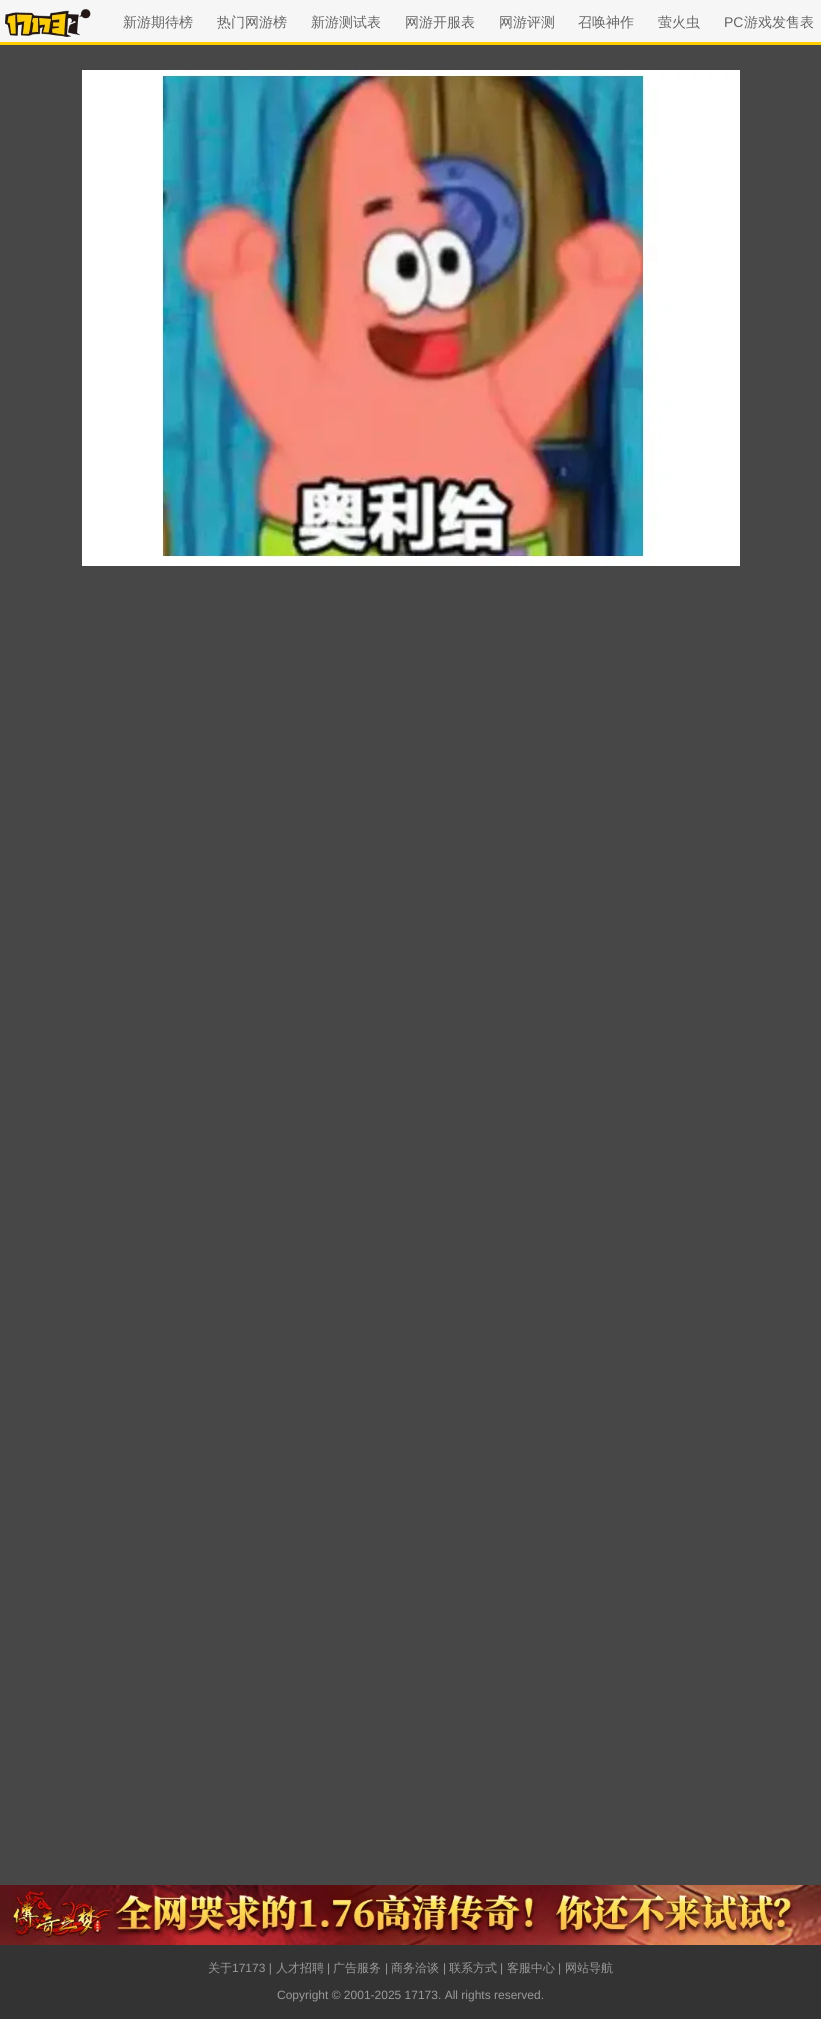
#include <cairo.h>
#include <math.h>
#include <stddef.h>


static void picture(cairo_t *cr, const char *path, double x, double y, double w, double h) {
    cairo_surface_t *image = cairo_image_surface_create_from_png(path);
    cairo_save(cr);
    cairo_set_source_surface(cr, image, x, y);
    cairo_rectangle(cr, x, y, w, h);
    cairo_fill(cr);
    cairo_restore(cr);
    cairo_surface_destroy(image);
}

int main(void) {
    cairo_surface_t *surface = cairo_image_surface_create(CAIRO_FORMAT_RGB24, 821, 2019);
    cairo_t *cr = cairo_create(surface);
    cairo_font_options_t *options = cairo_font_options_create();
    cairo_font_options_set_hint_metrics(options, CAIRO_HINT_METRICS_OFF);
    cairo_font_options_set_hint_style(options, CAIRO_HINT_STYLE_NONE);
    cairo_set_font_options(cr, options);
    cairo_set_miter_limit(cr, 4);
    cairo_set_source_rgb(cr, 0.278, 0.278, 0.278);
    cairo_paint(cr);
    cairo_set_source_rgb(cr, 0.961, 0.961, 0.961);
    cairo_rectangle(cr, 0, 0, 821, 42);
    cairo_fill(cr);
    cairo_set_source_rgb(cr, 1, 0.804, 0);
    cairo_rectangle(cr, 0, 42, 821, 3);
    cairo_fill(cr);
    picture(cr, "img1.png", 5, 9, 86, 28);
    cairo_select_font_face(cr, "WenQuanYi Zen Hei Medium", CAIRO_FONT_SLANT_NORMAL, CAIRO_FONT_WEIGHT_NORMAL);
    cairo_set_font_size(cr, 14);
    cairo_set_source_rgb(cr, 0.4, 0.4, 0.4);
    cairo_move_to(cr, 123, 27);
    cairo_show_text(cr, "新游期待榜");
    cairo_move_to(cr, 217, 27);
    cairo_show_text(cr, "热门网游榜");
    cairo_move_to(cr, 311, 27);
    cairo_show_text(cr, "新游测试表");
    cairo_move_to(cr, 405, 27);
    cairo_show_text(cr, "网游开服表");
    cairo_move_to(cr, 499, 27);
    cairo_show_text(cr, "网游评测");
    cairo_move_to(cr, 578, 27);
    cairo_show_text(cr, "召唤神作");
    cairo_move_to(cr, 658, 27);
    cairo_show_text(cr, "萤火虫");
    cairo_select_font_face(cr, "Liberation Sans", CAIRO_FONT_SLANT_NORMAL, CAIRO_FONT_WEIGHT_NORMAL);
    cairo_move_to(cr, 724, 27);
    cairo_show_text(cr, "PC");
    cairo_select_font_face(cr, "WenQuanYi Zen Hei Medium", CAIRO_FONT_SLANT_NORMAL, CAIRO_FONT_WEIGHT_NORMAL);
    cairo_move_to(cr, 744, 27);
    cairo_show_text(cr, "游戏发售表");
    picture(cr, "img2.png", 82, 70, 658, 496);
    picture(cr, "img3.png", 0, 1885, 821, 60);
    cairo_set_source_rgb(cr, 0.2, 0.2, 0.2);
    cairo_rectangle(cr, 0, 1945, 821, 74);
    cairo_fill(cr);
    cairo_set_font_size(cr, 12);
    cairo_set_source_rgb(cr, 0.6, 0.6, 0.6);
    cairo_move_to(cr, 208, 1972);
    cairo_show_text(cr, "关于");
    cairo_select_font_face(cr, "Liberation Sans", CAIRO_FONT_SLANT_NORMAL, CAIRO_FONT_WEIGHT_NORMAL);
    cairo_move_to(cr, 232, 1972);
    cairo_show_text(cr, "17173 |");
    cairo_select_font_face(cr, "WenQuanYi Zen Hei Medium", CAIRO_FONT_SLANT_NORMAL, CAIRO_FONT_WEIGHT_NORMAL);
    cairo_move_to(cr, 276, 1972);
    cairo_show_text(cr, "人才招聘");
    cairo_select_font_face(cr, "Liberation Sans", CAIRO_FONT_SLANT_NORMAL, CAIRO_FONT_WEIGHT_NORMAL);
    cairo_move_to(cr, 327, 1972);
    cairo_show_text(cr, "|");
    cairo_select_font_face(cr, "WenQuanYi Zen Hei Medium", CAIRO_FONT_SLANT_NORMAL, CAIRO_FONT_WEIGHT_NORMAL);
    cairo_move_to(cr, 333, 1972);
    cairo_show_text(cr, "广告服务");
    cairo_select_font_face(cr, "Liberation Sans", CAIRO_FONT_SLANT_NORMAL, CAIRO_FONT_WEIGHT_NORMAL);
    cairo_move_to(cr, 385, 1972);
    cairo_show_text(cr, "|");
    cairo_select_font_face(cr, "WenQuanYi Zen Hei Medium", CAIRO_FONT_SLANT_NORMAL, CAIRO_FONT_WEIGHT_NORMAL);
    cairo_move_to(cr, 391, 1972);
    cairo_show_text(cr, "商务洽谈");
    cairo_select_font_face(cr, "Liberation Sans", CAIRO_FONT_SLANT_NORMAL, CAIRO_FONT_WEIGHT_NORMAL);
    cairo_move_to(cr, 443, 1972);
    cairo_show_text(cr, "|");
    cairo_select_font_face(cr, "WenQuanYi Zen Hei Medium", CAIRO_FONT_SLANT_NORMAL, CAIRO_FONT_WEIGHT_NORMAL);
    cairo_move_to(cr, 449, 1972);
    cairo_show_text(cr, "联系方式");
    cairo_select_font_face(cr, "Liberation Sans", CAIRO_FONT_SLANT_NORMAL, CAIRO_FONT_WEIGHT_NORMAL);
    cairo_move_to(cr, 500, 1972);
    cairo_show_text(cr, "|");
    cairo_select_font_face(cr, "WenQuanYi Zen Hei Medium", CAIRO_FONT_SLANT_NORMAL, CAIRO_FONT_WEIGHT_NORMAL);
    cairo_move_to(cr, 507, 1972);
    cairo_show_text(cr, "客服中心");
    cairo_select_font_face(cr, "Liberation Sans", CAIRO_FONT_SLANT_NORMAL, CAIRO_FONT_WEIGHT_NORMAL);
    cairo_move_to(cr, 558, 1972);
    cairo_show_text(cr, "|");
    cairo_select_font_face(cr, "WenQuanYi Zen Hei Medium", CAIRO_FONT_SLANT_NORMAL, CAIRO_FONT_WEIGHT_NORMAL);
    cairo_move_to(cr, 565, 1972);
    cairo_show_text(cr, "网站导航");
    cairo_select_font_face(cr, "Liberation Sans", CAIRO_FONT_SLANT_NORMAL, CAIRO_FONT_WEIGHT_NORMAL);
    cairo_move_to(cr, 277, 1999);
    cairo_show_text(cr, "Copyright © 2001-2025 17173. All rights reserved.");
    cairo_surface_write_to_png(surface, "page.png");
    cairo_font_options_destroy(options);
    cairo_destroy(cr);
    cairo_surface_destroy(surface);
    return 0;
}
